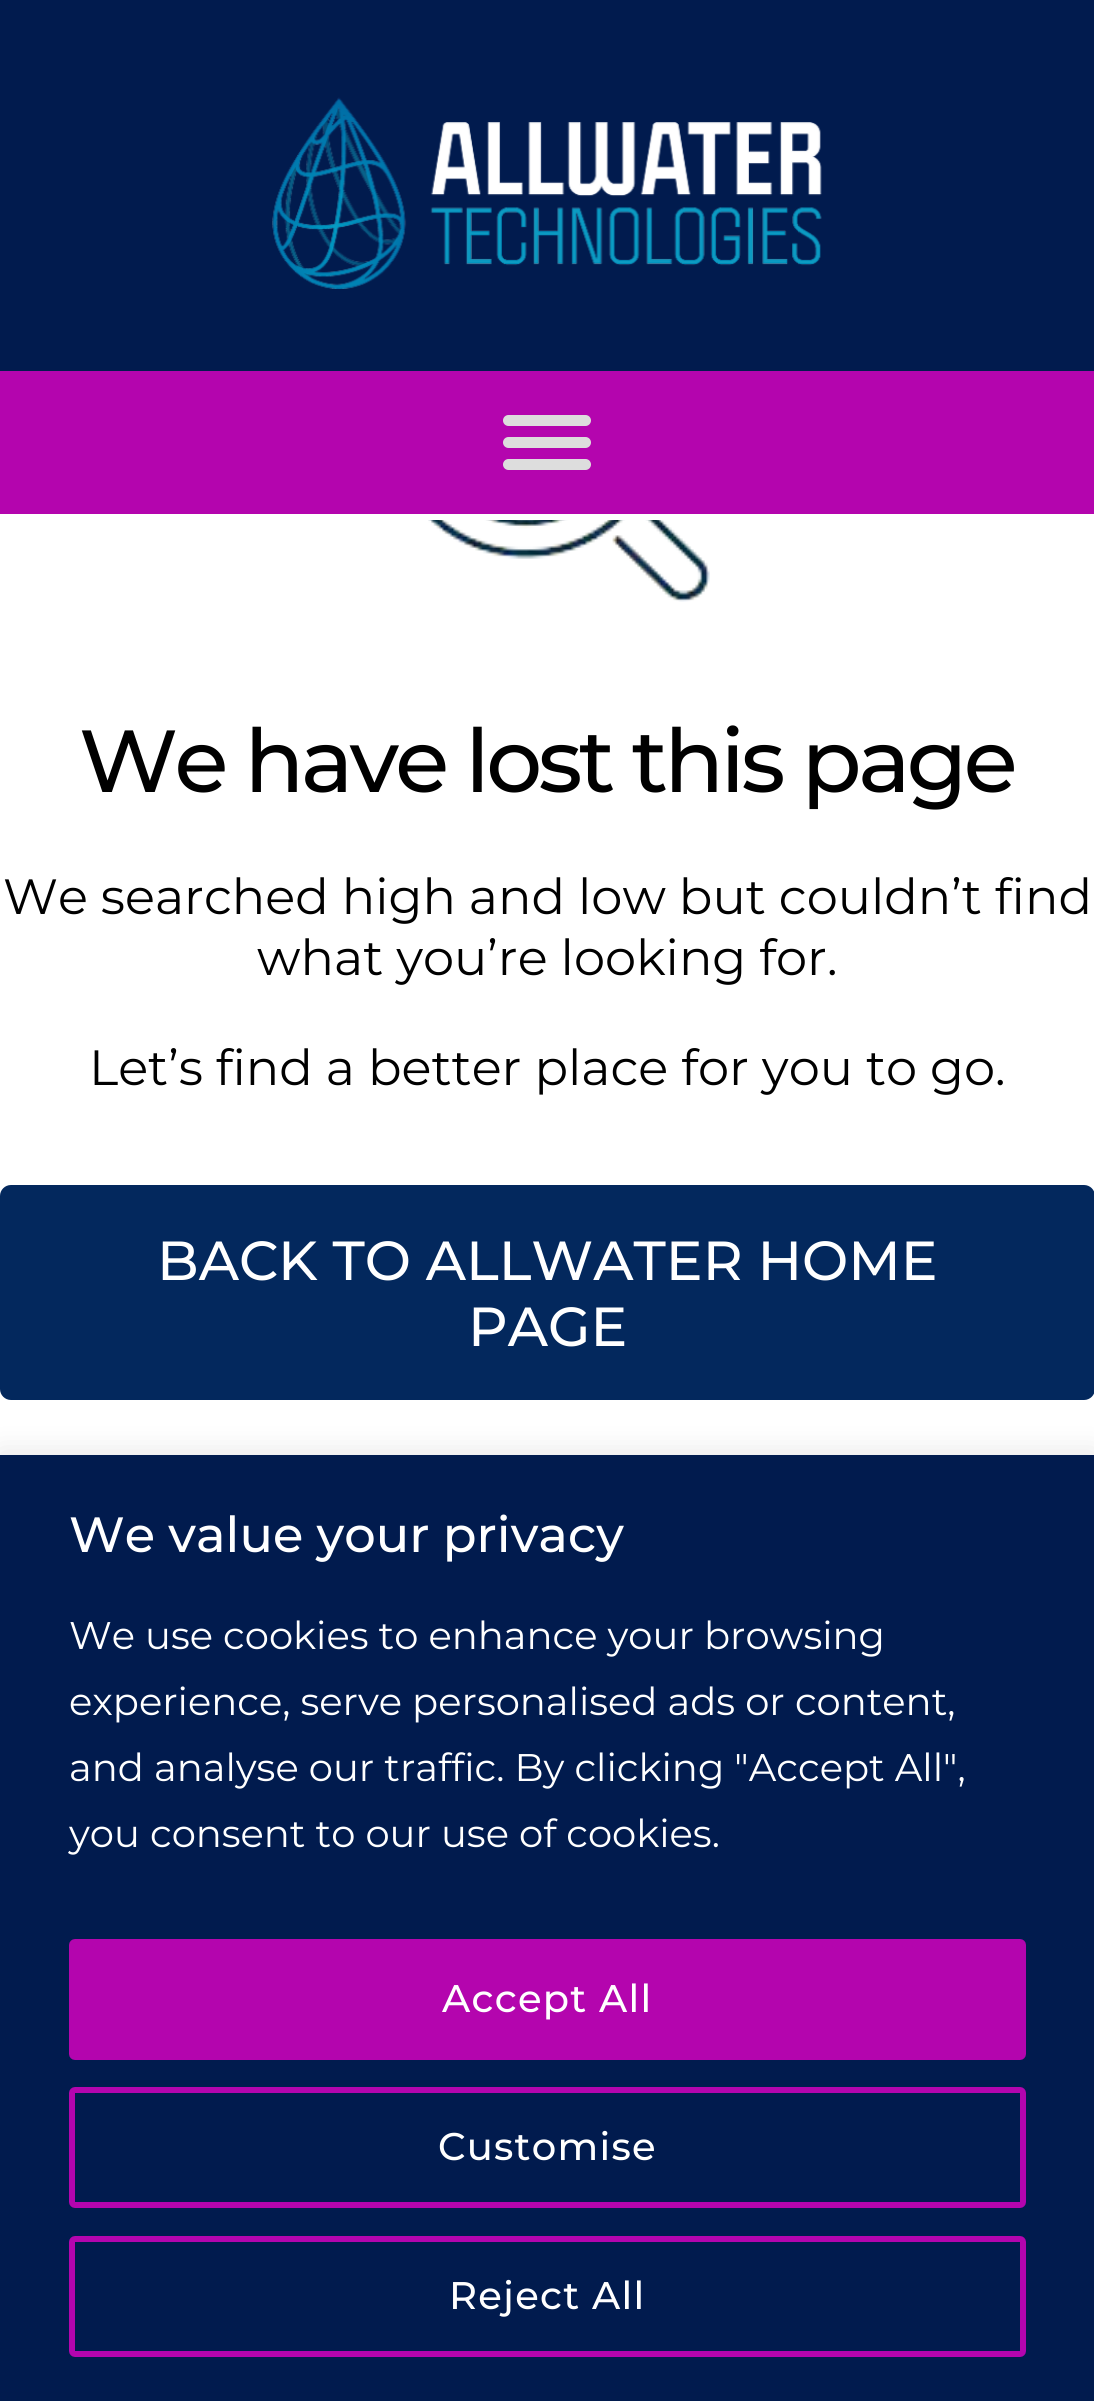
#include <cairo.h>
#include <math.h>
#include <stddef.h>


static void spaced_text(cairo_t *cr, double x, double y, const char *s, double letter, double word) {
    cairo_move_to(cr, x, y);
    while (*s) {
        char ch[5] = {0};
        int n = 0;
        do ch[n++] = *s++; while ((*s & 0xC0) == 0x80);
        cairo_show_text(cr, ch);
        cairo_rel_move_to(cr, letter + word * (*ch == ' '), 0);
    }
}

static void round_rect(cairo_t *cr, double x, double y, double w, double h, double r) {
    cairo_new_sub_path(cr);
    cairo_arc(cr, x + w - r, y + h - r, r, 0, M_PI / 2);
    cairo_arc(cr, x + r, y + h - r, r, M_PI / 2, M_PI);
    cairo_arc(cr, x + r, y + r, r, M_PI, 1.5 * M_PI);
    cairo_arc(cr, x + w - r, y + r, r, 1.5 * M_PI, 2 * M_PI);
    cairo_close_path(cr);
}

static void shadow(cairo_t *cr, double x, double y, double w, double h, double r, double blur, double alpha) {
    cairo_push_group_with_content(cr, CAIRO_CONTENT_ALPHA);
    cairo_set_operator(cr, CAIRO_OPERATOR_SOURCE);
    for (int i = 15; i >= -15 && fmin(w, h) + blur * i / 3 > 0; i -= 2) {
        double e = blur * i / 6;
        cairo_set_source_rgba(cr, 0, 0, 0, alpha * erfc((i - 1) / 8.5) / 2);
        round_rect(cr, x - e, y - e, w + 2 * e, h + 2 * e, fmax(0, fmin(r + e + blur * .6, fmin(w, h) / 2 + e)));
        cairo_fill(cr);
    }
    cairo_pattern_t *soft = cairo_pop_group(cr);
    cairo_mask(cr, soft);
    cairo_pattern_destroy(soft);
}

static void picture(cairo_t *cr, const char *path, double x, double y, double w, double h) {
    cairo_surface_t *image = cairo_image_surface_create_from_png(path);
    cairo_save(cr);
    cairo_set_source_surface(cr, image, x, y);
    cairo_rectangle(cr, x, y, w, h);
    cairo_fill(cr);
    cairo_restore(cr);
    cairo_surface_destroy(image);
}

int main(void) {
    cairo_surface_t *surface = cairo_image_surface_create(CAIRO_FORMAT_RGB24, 1094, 2401);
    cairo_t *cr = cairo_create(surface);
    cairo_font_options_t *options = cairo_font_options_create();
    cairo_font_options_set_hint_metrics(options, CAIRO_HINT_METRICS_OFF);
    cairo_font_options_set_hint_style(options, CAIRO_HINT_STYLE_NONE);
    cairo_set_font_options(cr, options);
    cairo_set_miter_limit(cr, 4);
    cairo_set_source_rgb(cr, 1, 1, 1);
    cairo_paint(cr);
    cairo_set_source_rgb(cr, 0.004, 0.106, 0.306);
    cairo_rectangle(cr, 0, 0, 1094, 371);
    cairo_fill(cr);
    picture(cr, "img1.png", 272, 97, 550, 192);
    cairo_set_source_rgb(cr, 0.706, 0.02, 0.682);
    cairo_rectangle(cr, 0, 371, 1094, 143);
    cairo_fill(cr);
    cairo_set_source_rgb(cr, 0.867, 0.867, 0.867);
    round_rect(cr, 503, 415, 88, 11, 5.5);
    cairo_fill(cr);
    round_rect(cr, 503, 437, 88, 11, 5.5);
    cairo_fill(cr);
    round_rect(cr, 503, 459, 88, 11, 5.5);
    cairo_fill(cr);
    picture(cr, "img2.png", 428, 520, 282, 82);
    cairo_select_font_face(cr, "Montserrat Medium", CAIRO_FONT_SLANT_NORMAL, CAIRO_FONT_WEIGHT_NORMAL);
    cairo_set_font_size(cr, 88);
    cairo_set_source_rgb(cr, 0, 0, 0);
    spaced_text(cr, 79, 792, "We have lost this page", -3.7, 0);
    cairo_select_font_face(cr, "Montserrat", CAIRO_FONT_SLANT_NORMAL, CAIRO_FONT_WEIGHT_NORMAL);
    cairo_set_font_size(cr, 49.5);
    cairo_move_to(cr, 3, 914);
    cairo_show_text(cr, "We searched high and low but couldn’t find");
    cairo_move_to(cr, 257, 975);
    cairo_show_text(cr, "what you’re looking for.");
    cairo_move_to(cr, 89, 1085);
    cairo_show_text(cr, "Let’s find a better place for you to go.");
    cairo_set_source_rgb(cr, 0.012, 0.157, 0.365);
    round_rect(cr, 0, 1185, 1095, 215, 11);
    cairo_fill(cr);
    cairo_select_font_face(cr, "Montserrat Medium", CAIRO_FONT_SLANT_NORMAL, CAIRO_FONT_WEIGHT_NORMAL);
    cairo_set_font_size(cr, 55);
    cairo_set_source_rgb(cr, 1, 1, 1);
    cairo_move_to(cr, 157, 1280);
    cairo_show_text(cr, "BACK TO ALLWATER HOME");
    cairo_move_to(cr, 468, 1346);
    cairo_show_text(cr, "PAGE");
    cairo_set_source_rgb(cr, 0.675, 0.671, 0.671);
    shadow(cr, 0, 1452, 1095, 949, 0, 14, 0.3);
    cairo_set_source_rgb(cr, 0.004, 0.106, 0.306);
    cairo_rectangle(cr, 0, 1455, 1094, 946);
    cairo_fill(cr);
    cairo_set_font_size(cr, 49.5);
    cairo_set_source_rgb(cr, 1, 1, 1);
    cairo_move_to(cr, 69, 1552);
    cairo_show_text(cr, "We value your privacy");
    cairo_select_font_face(cr, "Montserrat", CAIRO_FONT_SLANT_NORMAL, CAIRO_FONT_WEIGHT_NORMAL);
    cairo_set_font_size(cr, 38.5);
    cairo_move_to(cr, 69, 1649);
    cairo_show_text(cr, "We use cookies to enhance your browsing");
    cairo_move_to(cr, 69, 1715);
    cairo_show_text(cr, "experience, serve personalised ads or content,");
    cairo_move_to(cr, 69, 1781);
    cairo_show_text(cr, "and analyse our traffic. By clicking \"Accept All\",");
    cairo_move_to(cr, 69, 1847);
    cairo_show_text(cr, "you consent to our use of cookies.");
    cairo_set_source_rgb(cr, 0.706, 0.02, 0.682);
    round_rect(cr, 72, 1942, 951, 115, 3);
    cairo_fill_preserve(cr);
    cairo_set_line_width(cr, 6);
    cairo_stroke(cr);
    cairo_select_font_face(cr, "Montserrat Medium", CAIRO_FONT_SLANT_NORMAL, CAIRO_FONT_WEIGHT_NORMAL);
    cairo_set_source_rgb(cr, 1, 1, 1);
    spaced_text(cr, 442, 2012, "Accept All", 1.25, 0);
    round_rect(cr, 72, 2090, 951, 115, 3);
    cairo_set_source_rgb(cr, 0.706, 0.02, 0.682);
    cairo_stroke(cr);
    cairo_set_source_rgb(cr, 1, 1, 1);
    spaced_text(cr, 438, 2160, "Customise", 1.25, 0);
    round_rect(cr, 72, 2239, 951, 115, 3);
    cairo_set_source_rgb(cr, 0.706, 0.02, 0.682);
    cairo_stroke(cr);
    cairo_set_source_rgb(cr, 1, 1, 1);
    spaced_text(cr, 449, 2309, "Reject All", 1.25, 0);
    cairo_surface_write_to_png(surface, "page.png");
    cairo_font_options_destroy(options);
    cairo_destroy(cr);
    cairo_surface_destroy(surface);
    return 0;
}
